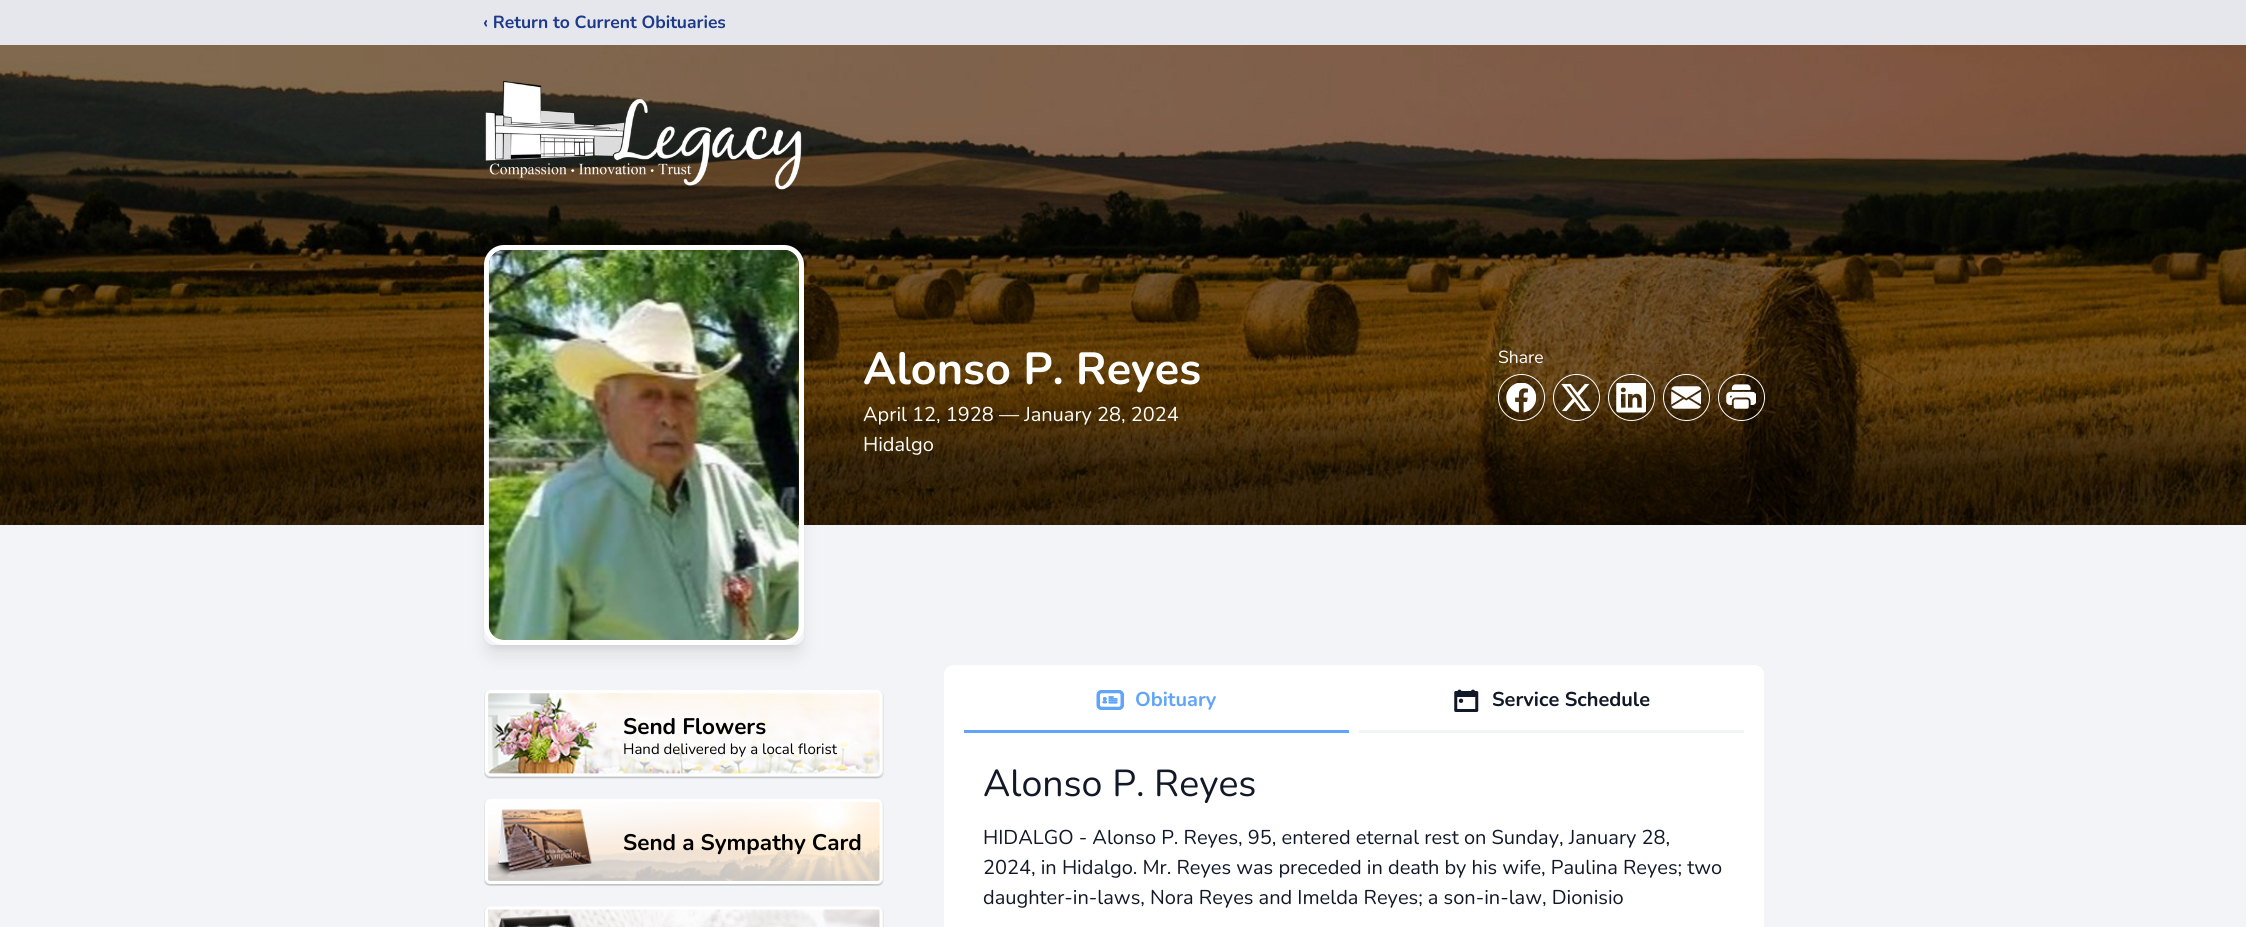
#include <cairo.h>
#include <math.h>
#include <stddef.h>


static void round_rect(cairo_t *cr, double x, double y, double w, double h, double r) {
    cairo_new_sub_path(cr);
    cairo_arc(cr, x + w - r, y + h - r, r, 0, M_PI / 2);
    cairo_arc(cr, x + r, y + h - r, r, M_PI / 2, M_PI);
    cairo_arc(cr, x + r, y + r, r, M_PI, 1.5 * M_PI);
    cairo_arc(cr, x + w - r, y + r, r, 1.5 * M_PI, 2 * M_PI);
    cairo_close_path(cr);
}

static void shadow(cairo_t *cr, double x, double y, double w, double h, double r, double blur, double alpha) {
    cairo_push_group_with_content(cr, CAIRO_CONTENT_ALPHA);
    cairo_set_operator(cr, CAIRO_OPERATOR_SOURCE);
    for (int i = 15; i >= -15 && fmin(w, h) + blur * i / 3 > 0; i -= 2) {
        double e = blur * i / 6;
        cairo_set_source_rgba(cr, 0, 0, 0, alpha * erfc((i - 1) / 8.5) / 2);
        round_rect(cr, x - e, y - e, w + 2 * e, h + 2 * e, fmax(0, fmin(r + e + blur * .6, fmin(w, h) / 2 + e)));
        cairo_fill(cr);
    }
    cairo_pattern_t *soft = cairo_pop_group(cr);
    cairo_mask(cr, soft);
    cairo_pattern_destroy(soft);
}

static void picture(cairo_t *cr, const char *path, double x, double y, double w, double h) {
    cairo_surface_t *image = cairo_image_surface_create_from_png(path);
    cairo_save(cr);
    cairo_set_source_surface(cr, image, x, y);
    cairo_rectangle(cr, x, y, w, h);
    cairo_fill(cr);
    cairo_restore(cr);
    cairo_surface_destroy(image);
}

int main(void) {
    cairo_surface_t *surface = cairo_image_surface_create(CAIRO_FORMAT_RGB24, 2246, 927);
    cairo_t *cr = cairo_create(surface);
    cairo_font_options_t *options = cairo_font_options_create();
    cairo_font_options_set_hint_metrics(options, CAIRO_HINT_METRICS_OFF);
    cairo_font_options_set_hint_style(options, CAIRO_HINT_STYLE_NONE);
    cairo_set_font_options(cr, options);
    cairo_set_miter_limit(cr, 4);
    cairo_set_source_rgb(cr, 0.953, 0.957, 0.965);
    cairo_paint(cr);
    cairo_set_source_rgb(cr, 0.898, 0.906, 0.922);
    cairo_rectangle(cr, 0, 0, 2246, 45);
    cairo_fill(cr);
    cairo_select_font_face(cr, "Nunito", CAIRO_FONT_SLANT_NORMAL, CAIRO_FONT_WEIGHT_BOLD);
    cairo_set_font_size(cr, 17.5);
    cairo_set_source_rgb(cr, 0.118, 0.227, 0.541);
    cairo_move_to(cr, 483, 28);
    cairo_show_text(cr, "‹ Return to Current Obituaries");
    picture(cr, "img1.png", 0, 45, 2246, 480);
    picture(cr, "img2.png", 485, 80, 317, 110);
    cairo_save(cr);
    cairo_set_fill_rule(cr, CAIRO_FILL_RULE_EVEN_ODD);
    cairo_new_path(cr);
    cairo_move_to(cr, 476, 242);
    cairo_line_to(cr, 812, 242);
    cairo_line_to(cr, 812, 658);
    cairo_line_to(cr, 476, 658);
    cairo_close_path(cr);
    cairo_move_to(cr, 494, 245);
    cairo_line_to(cr, 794, 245);
    cairo_curve_to(cr, 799.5, 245, 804, 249.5, 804, 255);
    cairo_line_to(cr, 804, 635);
    cairo_curve_to(cr, 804, 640.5, 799.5, 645, 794, 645);
    cairo_line_to(cr, 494, 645);
    cairo_curve_to(cr, 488.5, 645, 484, 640.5, 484, 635);
    cairo_line_to(cr, 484, 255);
    cairo_curve_to(cr, 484, 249.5, 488.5, 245, 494, 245);
    cairo_close_path(cr);
    cairo_clip(cr);
    cairo_set_source_rgb(cr, 0, 0, 0);
    shadow(cr, 489, 255, 310, 390, 5, 4, 0.1);
    cairo_restore(cr);
    cairo_save(cr);
    cairo_set_fill_rule(cr, CAIRO_FILL_RULE_EVEN_ODD);
    cairo_new_path(cr);
    cairo_move_to(cr, 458, 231);
    cairo_line_to(cr, 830, 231);
    cairo_line_to(cr, 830, 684);
    cairo_line_to(cr, 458, 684);
    cairo_close_path(cr);
    cairo_move_to(cr, 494, 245);
    cairo_line_to(cr, 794, 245);
    cairo_curve_to(cr, 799.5, 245, 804, 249.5, 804, 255);
    cairo_line_to(cr, 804, 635);
    cairo_curve_to(cr, 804, 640.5, 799.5, 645, 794, 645);
    cairo_line_to(cr, 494, 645);
    cairo_curve_to(cr, 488.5, 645, 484, 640.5, 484, 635);
    cairo_line_to(cr, 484, 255);
    cairo_curve_to(cr, 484, 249.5, 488.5, 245, 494, 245);
    cairo_close_path(cr);
    cairo_clip(cr);
    cairo_set_source_rgb(cr, 0, 0, 0);
    shadow(cr, 488, 261, 312, 393, 6, 9.5, 0.1);
    cairo_restore(cr);
    round_rect(cr, 486.5, 247.5, 315, 395, 17.5);
    cairo_set_source_rgb(cr, 1, 1, 1);
    cairo_set_line_width(cr, 5);
    cairo_stroke(cr);
    picture(cr, "img3.png", 488, 250, 311, 390);
    cairo_set_font_size(cr, 45);
    cairo_move_to(cr, 863, 384);
    cairo_show_text(cr, "Alonso P. Reyes");
    cairo_select_font_face(cr, "Nunito", CAIRO_FONT_SLANT_NORMAL, CAIRO_FONT_WEIGHT_NORMAL);
    cairo_set_font_size(cr, 20);
    cairo_move_to(cr, 863, 421);
    cairo_show_text(cr, "April 12, 1928 — January 28, 2024");
    cairo_move_to(cr, 863, 451);
    cairo_show_text(cr, "Hidalgo");
    cairo_set_font_size(cr, 17.5);
    cairo_move_to(cr, 1498, 363);
    cairo_show_text(cr, "Share");
    cairo_new_path(cr);
    cairo_arc(cr, 1521.5, 397.5, 23, 0, 2 * M_PI);
    cairo_set_line_width(cr, 1);
    cairo_stroke(cr);
    cairo_set_source_rgba(cr, 0, 0, 0, 0.2);
    cairo_arc(cr, 1521.5, 397.5, 22.5, 0, 2 * M_PI);
    cairo_fill(cr);
    picture(cr, "img4.png", 1506, 383, 30, 30);
    cairo_arc(cr, 1576.5, 397.5, 23, 0, 2 * M_PI);
    cairo_set_source_rgb(cr, 1, 1, 1);
    cairo_stroke(cr);
    cairo_set_source_rgba(cr, 0, 0, 0, 0.2);
    cairo_arc(cr, 1576.5, 397.5, 22.5, 0, 2 * M_PI);
    cairo_fill(cr);
    picture(cr, "img5.png", 1561, 383, 30, 29);
    cairo_arc(cr, 1631.5, 397.5, 23, 0, 2 * M_PI);
    cairo_set_source_rgb(cr, 1, 1, 1);
    cairo_stroke(cr);
    cairo_set_source_rgba(cr, 0, 0, 0, 0.2);
    cairo_arc(cr, 1631.5, 397.5, 22.5, 0, 2 * M_PI);
    cairo_fill(cr);
    picture(cr, "img6.png", 1616, 383, 30, 30);
    cairo_arc(cr, 1686.5, 397.5, 23, 0, 2 * M_PI);
    cairo_set_source_rgb(cr, 1, 1, 1);
    cairo_stroke(cr);
    cairo_set_source_rgba(cr, 0, 0, 0, 0.2);
    cairo_arc(cr, 1686.5, 397.5, 22.5, 0, 2 * M_PI);
    cairo_fill(cr);
    picture(cr, "img7.png", 1671, 386, 30, 23);
    cairo_arc(cr, 1741.5, 397.5, 23, 0, 2 * M_PI);
    cairo_set_source_rgb(cr, 1, 1, 1);
    cairo_stroke(cr);
    cairo_set_source_rgba(cr, 0, 0, 0, 0.2);
    cairo_arc(cr, 1741.5, 397.5, 22.5, 0, 2 * M_PI);
    cairo_fill(cr);
    picture(cr, "img8.png", 1726, 384, 30, 25);
    picture(cr, "img9.png", 484, 690, 400, 89);
    cairo_select_font_face(cr, "Nunito", CAIRO_FONT_SLANT_NORMAL, CAIRO_FONT_WEIGHT_BOLD);
    cairo_set_font_size(cr, 22.5);
    cairo_set_source_rgb(cr, 0, 0, 0);
    cairo_move_to(cr, 623, 734);
    cairo_show_text(cr, "Send Flowers");
    cairo_select_font_face(cr, "Nunito", CAIRO_FONT_SLANT_NORMAL, CAIRO_FONT_WEIGHT_NORMAL);
    cairo_set_font_size(cr, 15);
    cairo_move_to(cr, 623, 754);
    cairo_show_text(cr, "Hand delivered by a local florist");
    picture(cr, "img10.png", 484, 799, 400, 87);
    cairo_select_font_face(cr, "Nunito", CAIRO_FONT_SLANT_NORMAL, CAIRO_FONT_WEIGHT_BOLD);
    cairo_set_font_size(cr, 22.5);
    cairo_move_to(cr, 623, 850);
    cairo_show_text(cr, "Send a Sympathy Card");
    picture(cr, "img11.png", 484, 906, 400, 21);
    cairo_set_source_rgb(cr, 1, 1, 1);
    round_rect(cr, 944, 665, 820, 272, 10);
    cairo_fill(cr);
    cairo_set_source_rgb(cr, 0.376, 0.647, 0.98);
    cairo_rectangle(cr, 964, 730, 385, 3);
    cairo_fill(cr);
    picture(cr, "img12.png", 1096, 690, 28, 20);
    cairo_set_font_size(cr, 20);
    cairo_move_to(cr, 1135, 706);
    cairo_show_text(cr, "Obituary");
    cairo_set_source_rgb(cr, 0.953, 0.957, 0.965);
    cairo_rectangle(cr, 1359, 730, 385, 3);
    cairo_fill(cr);
    picture(cr, "img13.png", 1454, 689, 25, 23);
    cairo_set_source_rgb(cr, 0.067, 0.094, 0.153);
    cairo_move_to(cr, 1492, 706);
    cairo_show_text(cr, "Service Schedule");
    cairo_select_font_face(cr, "Nunito", CAIRO_FONT_SLANT_NORMAL, CAIRO_FONT_WEIGHT_NORMAL);
    cairo_set_font_size(cr, 37.5);
    cairo_move_to(cr, 983, 796);
    cairo_show_text(cr, "Alonso P. Reyes");
    cairo_set_font_size(cr, 20);
    cairo_move_to(cr, 983, 844);
    cairo_show_text(cr, "HIDALGO - Alonso P. Reyes, 95, entered eternal rest on Sunday, January 28,");
    cairo_move_to(cr, 983, 874);
    cairo_show_text(cr, "2024, in Hidalgo. Mr. Reyes was preceded in death by his wife, Paulina Reyes; two");
    cairo_move_to(cr, 983, 904);
    cairo_show_text(cr, "daughter-in-laws, Nora Reyes and Imelda Reyes; a son-in-law, Dionisio");
    cairo_surface_write_to_png(surface, "page.png");
    cairo_font_options_destroy(options);
    cairo_destroy(cr);
    cairo_surface_destroy(surface);
    return 0;
}
